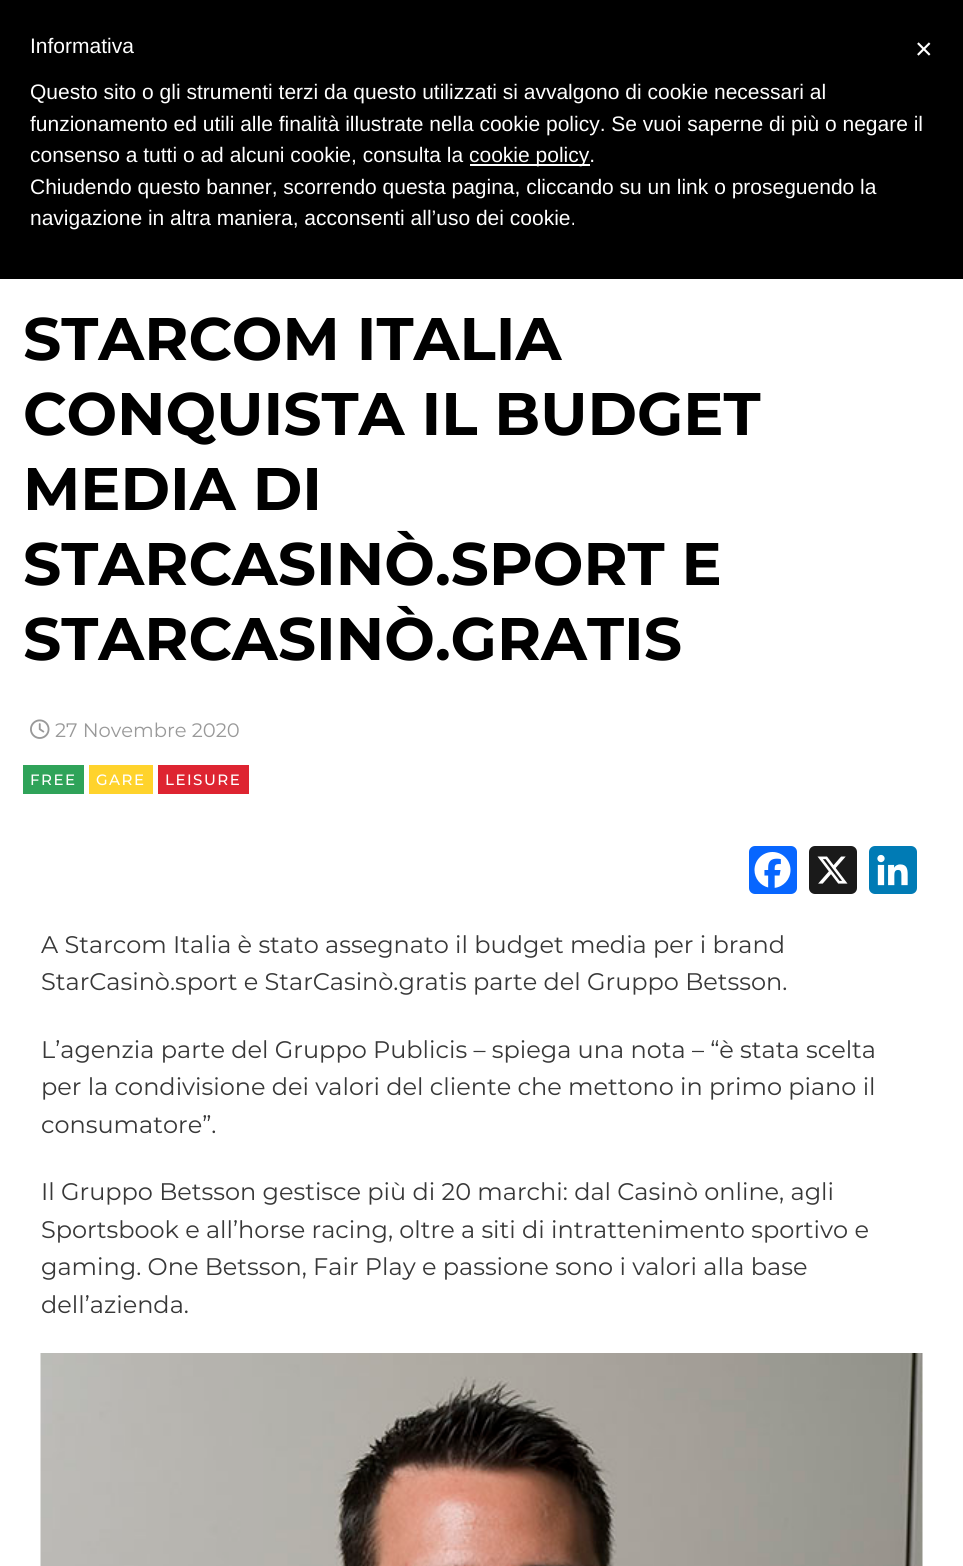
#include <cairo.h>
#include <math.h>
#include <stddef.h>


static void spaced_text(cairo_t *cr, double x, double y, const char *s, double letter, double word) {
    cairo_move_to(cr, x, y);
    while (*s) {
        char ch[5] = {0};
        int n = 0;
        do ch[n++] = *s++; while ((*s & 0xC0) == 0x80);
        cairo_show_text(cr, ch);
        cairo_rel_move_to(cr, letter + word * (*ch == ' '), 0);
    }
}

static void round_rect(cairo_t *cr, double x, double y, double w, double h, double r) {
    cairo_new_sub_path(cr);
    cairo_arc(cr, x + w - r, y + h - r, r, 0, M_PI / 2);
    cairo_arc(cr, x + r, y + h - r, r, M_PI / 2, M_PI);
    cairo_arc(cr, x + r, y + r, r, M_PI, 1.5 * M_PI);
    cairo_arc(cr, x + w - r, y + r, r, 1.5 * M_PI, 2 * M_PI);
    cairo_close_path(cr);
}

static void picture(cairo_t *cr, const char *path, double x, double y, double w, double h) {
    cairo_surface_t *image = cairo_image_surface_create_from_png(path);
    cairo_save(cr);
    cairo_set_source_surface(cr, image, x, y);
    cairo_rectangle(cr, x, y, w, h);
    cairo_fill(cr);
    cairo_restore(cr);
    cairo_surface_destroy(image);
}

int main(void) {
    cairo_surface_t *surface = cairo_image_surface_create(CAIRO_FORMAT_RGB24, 963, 1566);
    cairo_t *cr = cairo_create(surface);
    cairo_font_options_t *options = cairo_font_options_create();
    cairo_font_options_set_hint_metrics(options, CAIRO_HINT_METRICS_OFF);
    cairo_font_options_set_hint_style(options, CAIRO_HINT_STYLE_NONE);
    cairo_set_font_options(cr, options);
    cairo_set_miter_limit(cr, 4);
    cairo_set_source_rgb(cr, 1, 1, 1);
    cairo_paint(cr);
    cairo_set_source_rgb(cr, 0, 0, 0);
    cairo_rectangle(cr, 0, 0, 963, 279);
    cairo_fill(cr);
    cairo_select_font_face(cr, "Liberation Sans", CAIRO_FONT_SLANT_NORMAL, CAIRO_FONT_WEIGHT_NORMAL);
    cairo_set_font_size(cr, 21);
    cairo_set_source_rgb(cr, 1, 1, 1);
    cairo_move_to(cr, 30, 53);
    cairo_show_text(cr, "Informativa");
    cairo_move_to(cr, 30, 99);
    cairo_show_text(cr, "Questo sito o gli strumenti terzi da questo utilizzati si avvalgono di cookie necessari al");
    cairo_move_to(cr, 30, 131);
    cairo_show_text(cr, "funzionamento ed utili alle finalità illustrate nella cookie policy. Se vuoi saperne di più o negare il");
    cairo_move_to(cr, 30, 162);
    cairo_show_text(cr, "consenso a tutti o ad alcuni cookie, consulta la");
    cairo_rectangle(cr, 470, 164, 120, 2);
    cairo_fill(cr);
    cairo_move_to(cr, 469, 162);
    cairo_show_text(cr, "cookie policy.");
    cairo_move_to(cr, 30, 194);
    cairo_show_text(cr, "Chiudendo questo banner, scorrendo questa pagina, cliccando su un link o proseguendo la");
    cairo_move_to(cr, 30, 225);
    cairo_show_text(cr, "navigazione in altra maniera, acconsenti all’uso dei cookie.");
    cairo_set_font_size(cr, 30);
    cairo_move_to(cr, 915, 59);
    cairo_show_text(cr, "×");
    cairo_select_font_face(cr, "Montserrat", CAIRO_FONT_SLANT_NORMAL, CAIRO_FONT_WEIGHT_BOLD);
    cairo_set_font_size(cr, 60);
    cairo_set_source_rgb(cr, 0, 0, 0);
    cairo_move_to(cr, 23, 360);
    cairo_show_text(cr, "STARCOM ITALIA");
    cairo_move_to(cr, 23, 435);
    cairo_show_text(cr, "CONQUISTA IL BUDGET");
    cairo_move_to(cr, 23, 510);
    cairo_show_text(cr, "MEDIA DI");
    cairo_move_to(cr, 23, 585);
    cairo_show_text(cr, "STARCASINÒ.SPORT E");
    cairo_move_to(cr, 23, 660);
    cairo_show_text(cr, "STARCASINÒ.GRATIS");
    picture(cr, "img1.png", 30, 719, 20, 20);
    cairo_select_font_face(cr, "Montserrat", CAIRO_FONT_SLANT_NORMAL, CAIRO_FONT_WEIGHT_NORMAL);
    cairo_set_font_size(cr, 19.5);
    cairo_set_source_rgb(cr, 0.6, 0.6, 0.6);
    cairo_move_to(cr, 55, 737);
    cairo_show_text(cr, "27 Novembre 2020");
    cairo_set_source_rgb(cr, 0.184, 0.639, 0.349);
    cairo_rectangle(cr, 23, 765, 61, 29);
    cairo_fill(cr);
    cairo_select_font_face(cr, "Montserrat Medium", CAIRO_FONT_SLANT_NORMAL, CAIRO_FONT_WEIGHT_NORMAL);
    cairo_set_font_size(cr, 15);
    cairo_set_source_rgb(cr, 1, 1, 1);
    spaced_text(cr, 30, 785, "FREE", 1.5, 0);
    cairo_set_source_rgb(cr, 1, 0.827, 0.173);
    cairo_rectangle(cr, 89, 765, 64, 29);
    cairo_fill(cr);
    cairo_set_source_rgb(cr, 1, 1, 1);
    spaced_text(cr, 96, 785, "GARE", 1.5, 0);
    cairo_set_source_rgb(cr, 0.871, 0.141, 0.192);
    cairo_rectangle(cr, 158, 765, 91, 29);
    cairo_fill(cr);
    cairo_set_source_rgb(cr, 1, 1, 1);
    spaced_text(cr, 165, 785, "LEISURE", 1.5, 0);
    cairo_set_source_rgb(cr, 0.031, 0.4, 1);
    round_rect(cr, 749, 846, 48, 48, 6);
    cairo_fill(cr);
    picture(cr, "img2.png", 754, 852, 37, 36);
    cairo_set_source_rgb(cr, 0.102, 0.102, 0.102);
    round_rect(cr, 809, 846, 48, 48, 6);
    cairo_fill(cr);
    picture(cr, "img3.png", 817, 856, 31, 28);
    cairo_set_source_rgb(cr, 0, 0.482, 0.71);
    round_rect(cr, 869, 846, 48, 48, 6);
    cairo_fill(cr);
    picture(cr, "img4.png", 877, 854, 31, 32);
    cairo_select_font_face(cr, "Montserrat", CAIRO_FONT_SLANT_NORMAL, CAIRO_FONT_WEIGHT_NORMAL);
    cairo_set_font_size(cr, 24);
    cairo_set_source_rgb(cr, 0.22, 0.22, 0.22);
    cairo_move_to(cr, 41, 953);
    cairo_show_text(cr, "A Starcom Italia è stato assegnato il budget media per i brand");
    cairo_move_to(cr, 41, 990);
    cairo_show_text(cr, "StarCasinò.sport e StarCasinò.gratis parte del Gruppo Betsson.");
    cairo_move_to(cr, 41, 1058);
    cairo_show_text(cr, "L’agenzia parte del Gruppo Publicis – spiega una nota – “è stata scelta");
    cairo_move_to(cr, 41, 1095);
    cairo_show_text(cr, "per la condivisione dei valori del cliente che mettono in primo piano il");
    cairo_move_to(cr, 41, 1133);
    cairo_show_text(cr, "consumatore”.");
    cairo_move_to(cr, 41, 1200);
    cairo_show_text(cr, "Il Gruppo Betsson gestisce più di 20 marchi: dal Casinò online, agli");
    cairo_move_to(cr, 41, 1238);
    cairo_show_text(cr, "Sportsbook e all’horse racing, oltre a siti di intrattenimento sportivo e");
    cairo_move_to(cr, 41, 1275);
    cairo_show_text(cr, "gaming. One Betsson, Fair Play e passione sono i valori alla base");
    cairo_move_to(cr, 41, 1313);
    cairo_show_text(cr, "dell’azienda.");
    picture(cr, "img5.png", 40, 1353, 883, 213);
    cairo_surface_write_to_png(surface, "page.png");
    cairo_font_options_destroy(options);
    cairo_destroy(cr);
    cairo_surface_destroy(surface);
    return 0;
}
